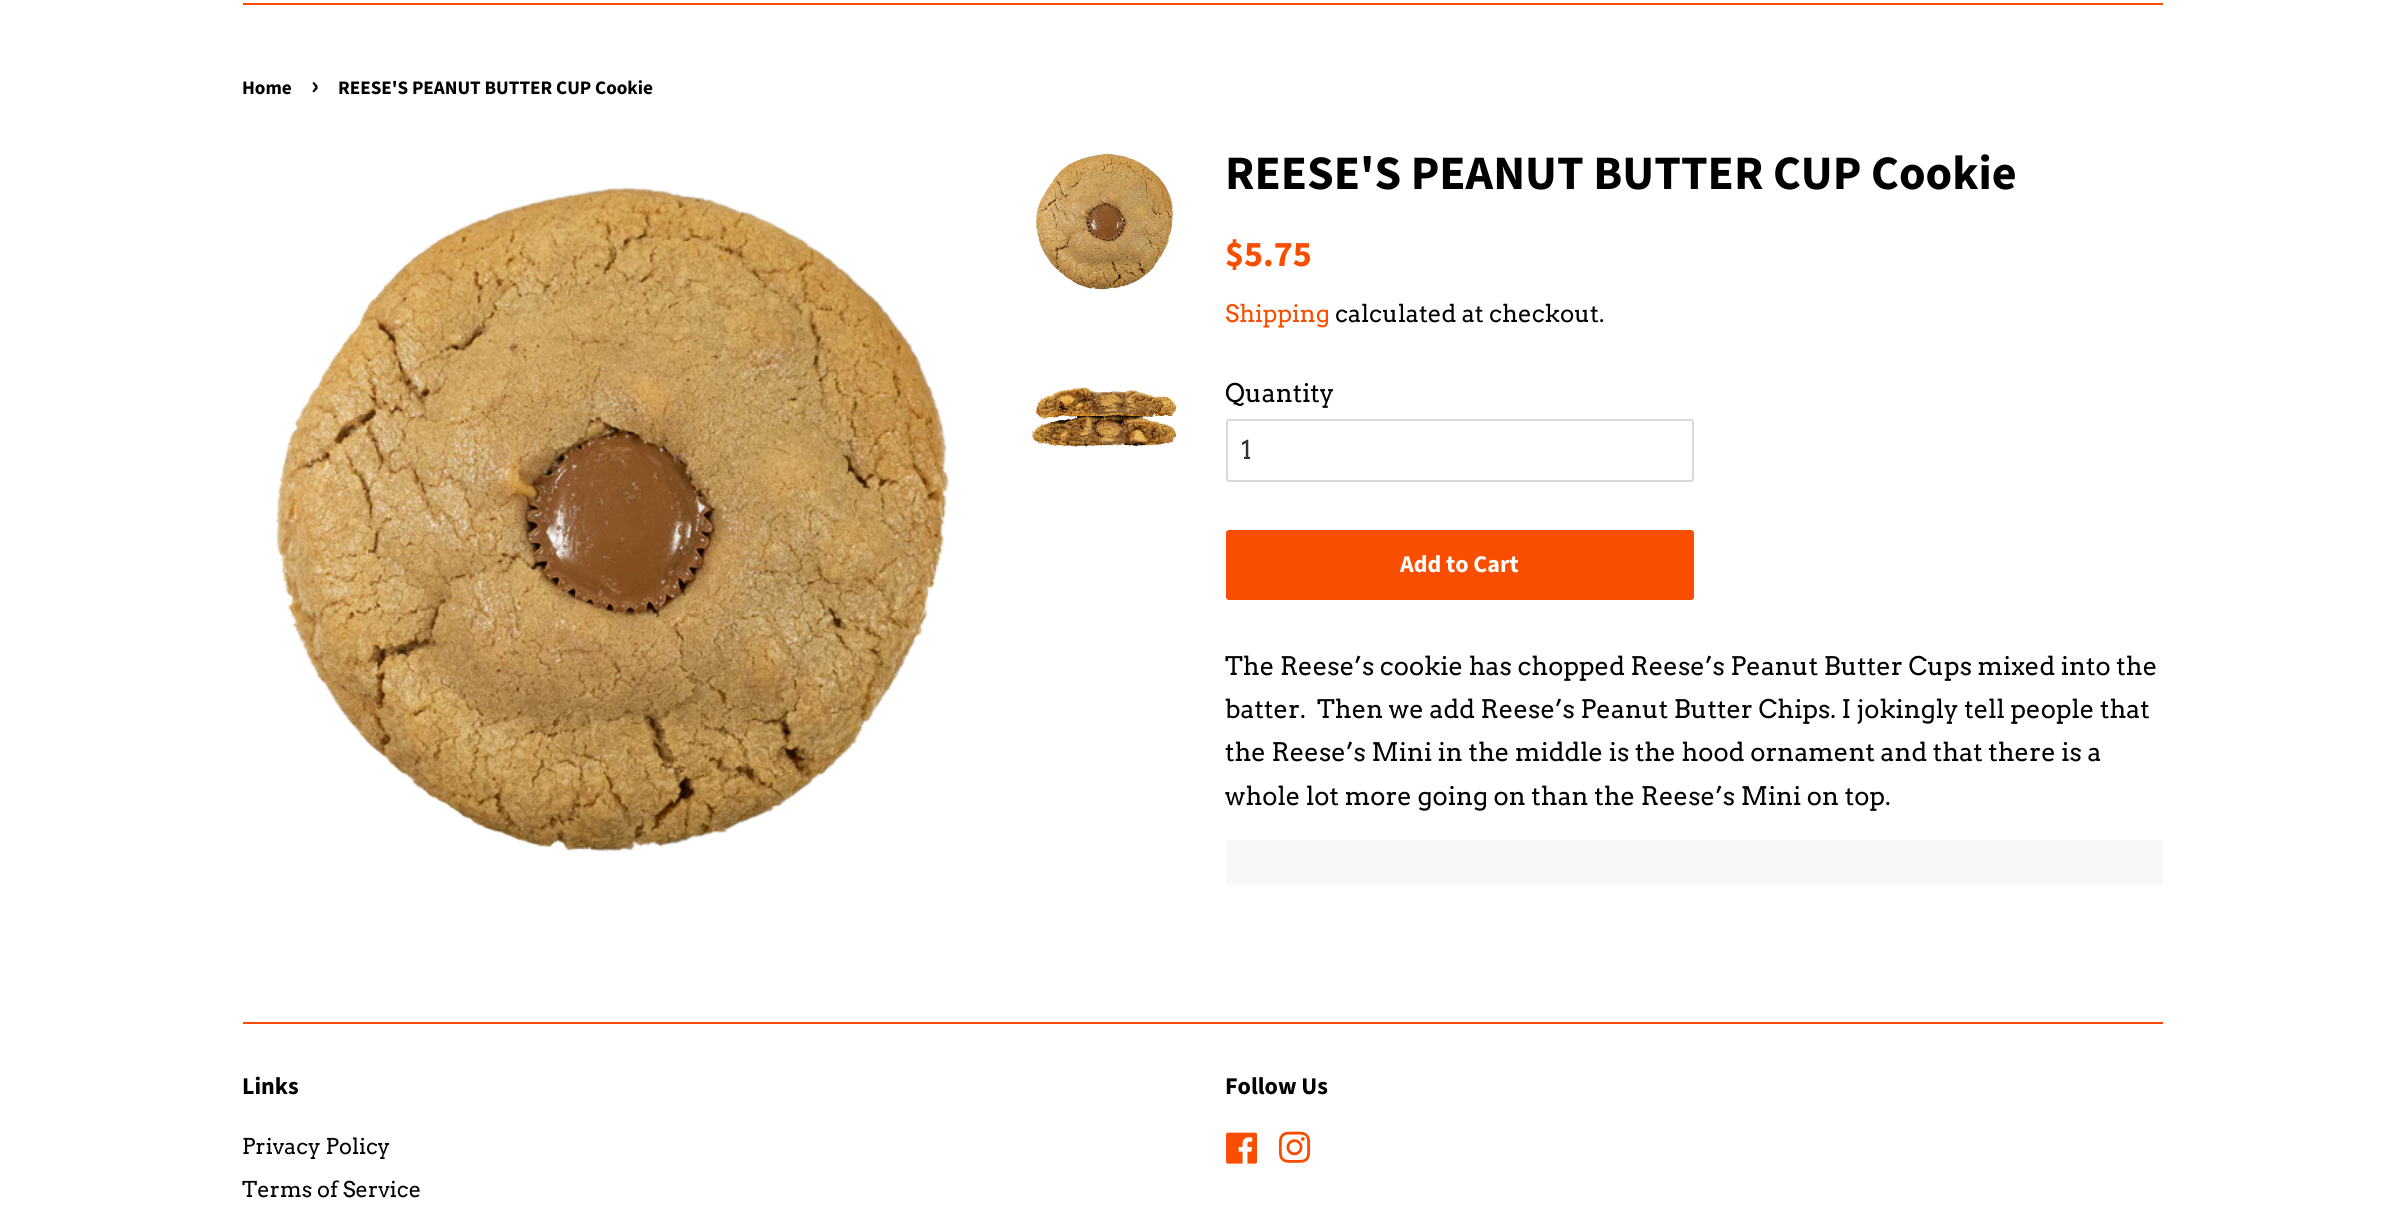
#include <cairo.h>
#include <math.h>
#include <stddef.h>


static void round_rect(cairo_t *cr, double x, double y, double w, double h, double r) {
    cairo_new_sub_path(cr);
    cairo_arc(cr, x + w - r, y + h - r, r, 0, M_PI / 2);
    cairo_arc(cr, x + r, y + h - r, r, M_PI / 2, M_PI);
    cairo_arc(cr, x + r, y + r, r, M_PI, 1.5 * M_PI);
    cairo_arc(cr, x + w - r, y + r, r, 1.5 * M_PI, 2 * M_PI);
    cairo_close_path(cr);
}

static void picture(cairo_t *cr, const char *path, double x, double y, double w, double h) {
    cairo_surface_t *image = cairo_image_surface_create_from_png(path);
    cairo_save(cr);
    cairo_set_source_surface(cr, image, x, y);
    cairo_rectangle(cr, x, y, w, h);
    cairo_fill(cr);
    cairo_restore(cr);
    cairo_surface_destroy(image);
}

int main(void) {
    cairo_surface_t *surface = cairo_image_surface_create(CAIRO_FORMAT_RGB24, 2404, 1221);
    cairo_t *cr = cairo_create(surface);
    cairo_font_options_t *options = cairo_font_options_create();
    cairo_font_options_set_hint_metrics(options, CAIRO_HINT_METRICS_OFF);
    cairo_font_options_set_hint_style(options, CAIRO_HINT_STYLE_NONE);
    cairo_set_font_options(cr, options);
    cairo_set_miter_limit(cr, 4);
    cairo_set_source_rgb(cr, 1, 1, 1);
    cairo_paint(cr);
    cairo_set_source_rgb(cr, 0.976, 0.302, 0);
    cairo_rectangle(cr, 243, 3, 1920, 2);
    cairo_fill(cr);
    cairo_select_font_face(cr, "Source Sans Pro", CAIRO_FONT_SLANT_NORMAL, CAIRO_FONT_WEIGHT_BOLD);
    cairo_set_font_size(cr, 19.1);
    cairo_set_source_rgb(cr, 0, 0, 0);
    cairo_move_to(cr, 242, 94);
    cairo_show_text(cr, "Home");
    cairo_set_font_size(cr, 27);
    cairo_move_to(cr, 311, 94);
    cairo_show_text(cr, "›");
    cairo_set_font_size(cr, 19.1);
    cairo_move_to(cr, 338, 94);
    cairo_show_text(cr, "REESE'S PEANUT BUTTER CUP Cookie");
    picture(cr, "img1.png", 275, 187, 675, 666);
    picture(cr, "img2.png", 1035, 153, 139, 137);
    picture(cr, "img3.png", 1031, 387, 146, 60);
    cairo_set_font_size(cr, 48);
    cairo_move_to(cr, 1225, 189);
    cairo_show_text(cr, "REESE'S PEANUT BUTTER CUP Cookie");
    cairo_set_font_size(cr, 36);
    cairo_set_source_rgb(cr, 0.976, 0.302, 0);
    cairo_move_to(cr, 1225, 266);
    cairo_show_text(cr, "$5.75");
    cairo_select_font_face(cr, "Arvo", CAIRO_FONT_SLANT_NORMAL, CAIRO_FONT_WEIGHT_NORMAL);
    cairo_set_font_size(cr, 24);
    cairo_move_to(cr, 1225, 322);
    cairo_show_text(cr, "Shipping");
    cairo_set_source_rgb(cr, 0, 0, 0);
    cairo_move_to(cr, 1335, 322);
    cairo_show_text(cr, "calculated at checkout.");
    cairo_set_font_size(cr, 25.5);
    cairo_move_to(cr, 1225, 402);
    cairo_show_text(cr, "Quantity");
    round_rect(cr, 1227, 420, 466, 61, 2);
    cairo_set_source_rgb(cr, 0.851, 0.851, 0.851);
    cairo_stroke(cr);
    cairo_set_source_rgb(cr, 0.2, 0.2, 0.2);
    cairo_move_to(cr, 1241, 459);
    cairo_show_text(cr, "1");
    cairo_set_source_rgb(cr, 0.976, 0.302, 0);
    round_rect(cr, 1226, 530, 468, 70, 3);
    cairo_fill(cr);
    cairo_select_font_face(cr, "Source Sans Pro", CAIRO_FONT_SLANT_NORMAL, CAIRO_FONT_WEIGHT_BOLD);
    cairo_set_font_size(cr, 24);
    cairo_set_source_rgb(cr, 1, 1, 1);
    cairo_move_to(cr, 1400, 572);
    cairo_show_text(cr, "Add to Cart");
    cairo_select_font_face(cr, "Arvo", CAIRO_FONT_SLANT_NORMAL, CAIRO_FONT_WEIGHT_NORMAL);
    cairo_set_font_size(cr, 25.5);
    cairo_set_source_rgb(cr, 0, 0, 0);
    cairo_move_to(cr, 1225, 675);
    cairo_show_text(cr, "The Reese’s cookie has chopped Reese’s Peanut Butter Cups mixed into the");
    cairo_move_to(cr, 1225, 718);
    cairo_show_text(cr, "batter.  Then we add Reese’s Peanut Butter Chips. I jokingly tell people that");
    cairo_move_to(cr, 1225, 761);
    cairo_show_text(cr, "the Reese’s Mini in the middle is the hood ornament and that there is a");
    cairo_move_to(cr, 1225, 805);
    cairo_show_text(cr, "whole lot more going on than the Reese’s Mini on top.");
    cairo_set_source_rgb(cr, 0.98, 0.969, 0.961);
    cairo_rectangle(cr, 1226, 840, 937, 45);
    cairo_fill(cr);
    cairo_set_source_rgb(cr, 0.976, 0.302, 0);
    cairo_rectangle(cr, 243, 1022, 1920, 2);
    cairo_fill(cr);
    cairo_select_font_face(cr, "Source Sans Pro", CAIRO_FONT_SLANT_NORMAL, CAIRO_FONT_WEIGHT_BOLD);
    cairo_set_font_size(cr, 24);
    cairo_set_source_rgb(cr, 0, 0, 0);
    cairo_move_to(cr, 242, 1094);
    cairo_show_text(cr, "Links");
    cairo_select_font_face(cr, "Arvo", CAIRO_FONT_SLANT_NORMAL, CAIRO_FONT_WEIGHT_NORMAL);
    cairo_set_font_size(cr, 21.75);
    cairo_move_to(cr, 242, 1154);
    cairo_show_text(cr, "Privacy Policy");
    cairo_move_to(cr, 242, 1197);
    cairo_show_text(cr, "Terms of Service");
    cairo_select_font_face(cr, "Source Sans Pro", CAIRO_FONT_SLANT_NORMAL, CAIRO_FONT_WEIGHT_BOLD);
    cairo_set_font_size(cr, 24);
    cairo_move_to(cr, 1225, 1094);
    cairo_show_text(cr, "Follow Us");
    picture(cr, "img4.png", 1226, 1132, 31, 32);
    picture(cr, "img5.png", 1278, 1131, 33, 32);
    cairo_surface_write_to_png(surface, "page.png");
    cairo_font_options_destroy(options);
    cairo_destroy(cr);
    cairo_surface_destroy(surface);
    return 0;
}
